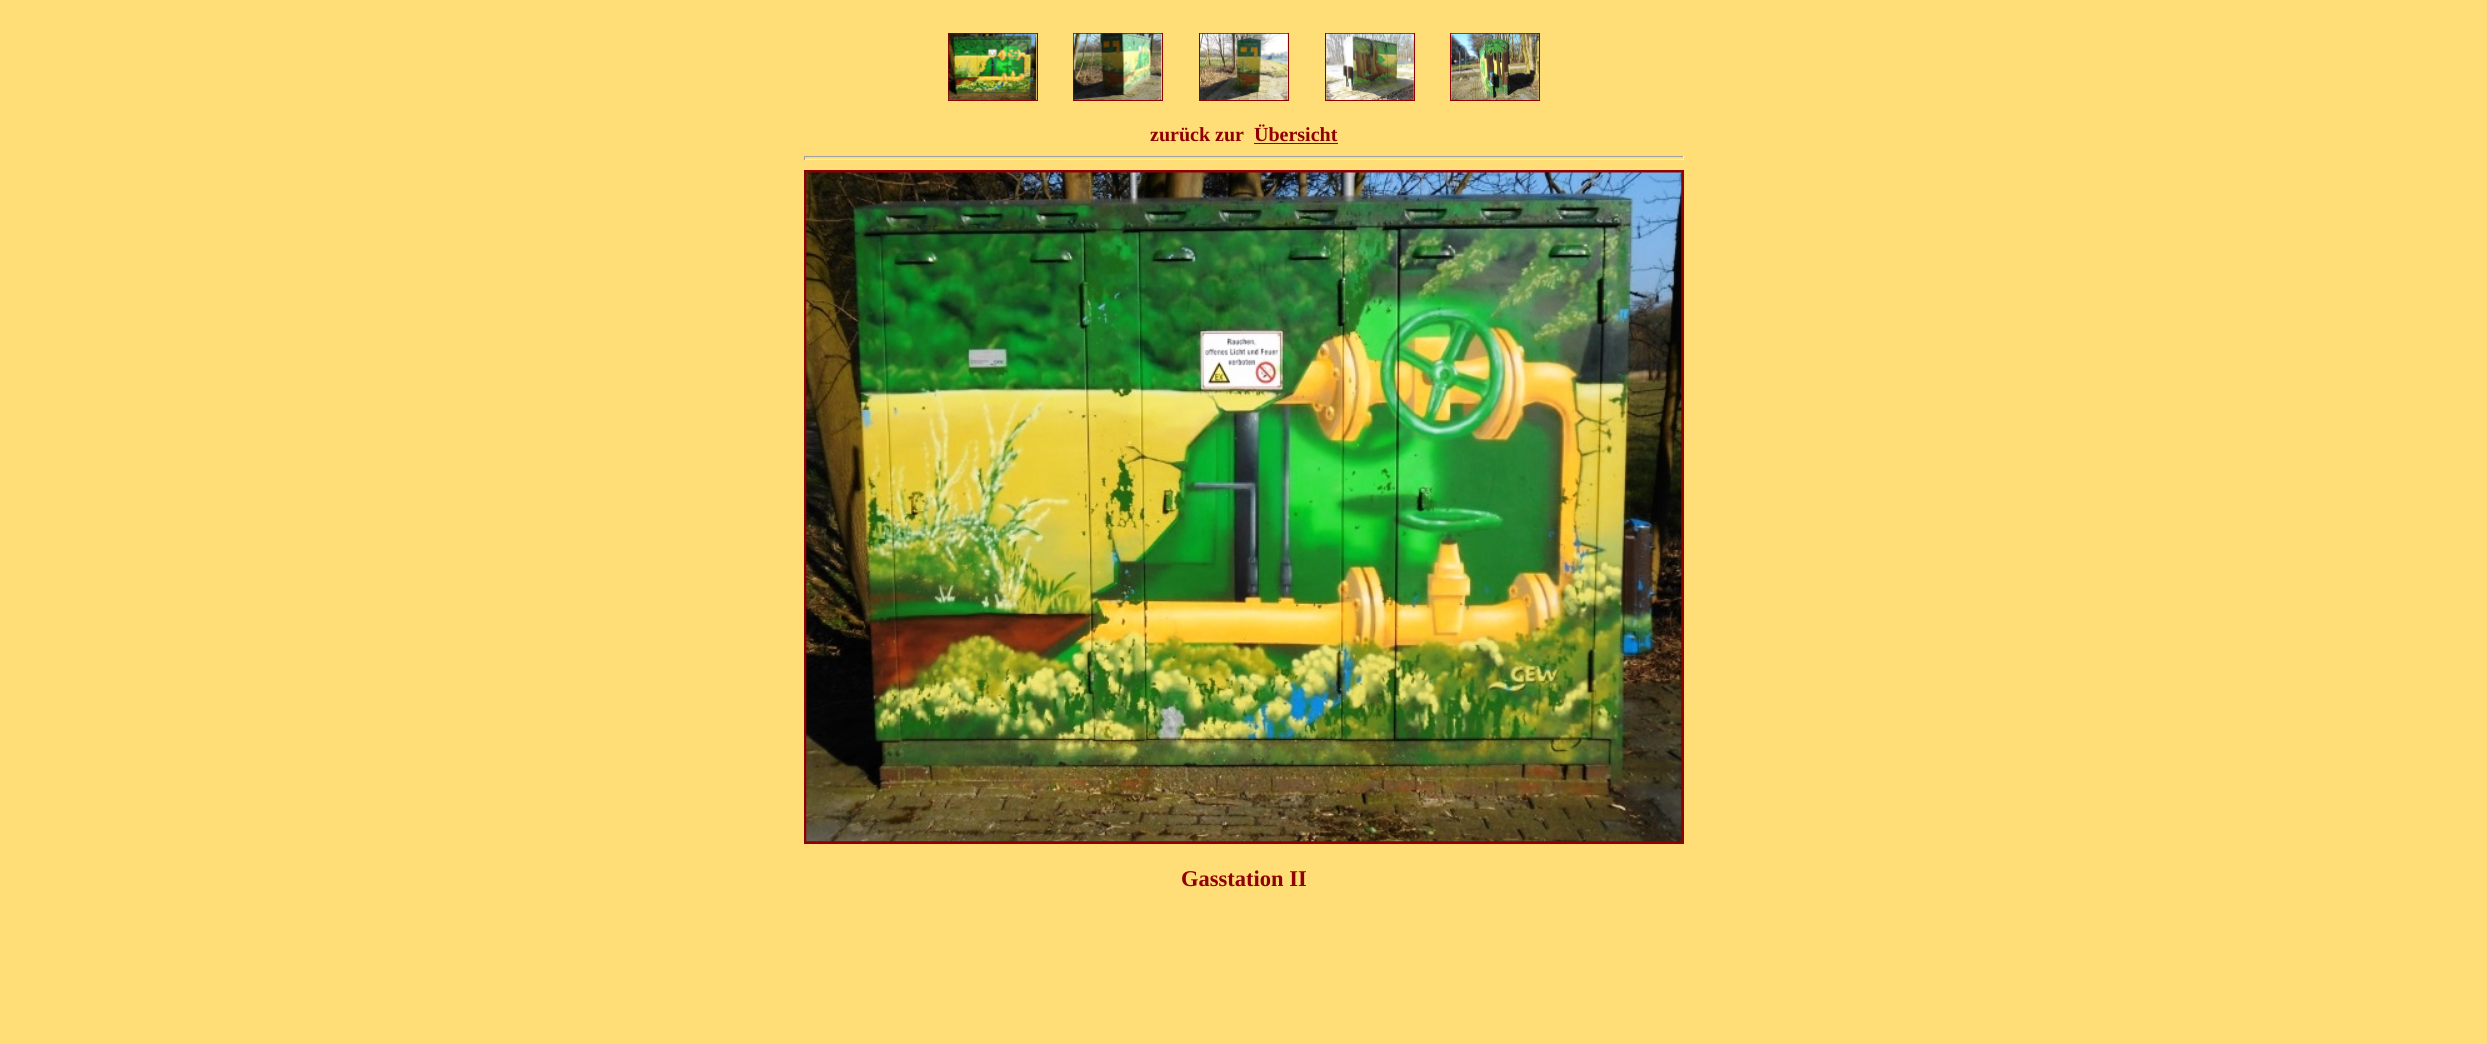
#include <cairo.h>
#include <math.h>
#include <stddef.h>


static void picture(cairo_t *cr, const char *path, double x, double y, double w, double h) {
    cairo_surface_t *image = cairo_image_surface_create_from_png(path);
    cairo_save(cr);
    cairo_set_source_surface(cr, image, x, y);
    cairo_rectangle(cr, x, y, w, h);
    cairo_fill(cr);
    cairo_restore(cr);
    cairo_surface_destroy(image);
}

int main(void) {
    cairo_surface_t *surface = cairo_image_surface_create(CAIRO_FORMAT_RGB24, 2487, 1044);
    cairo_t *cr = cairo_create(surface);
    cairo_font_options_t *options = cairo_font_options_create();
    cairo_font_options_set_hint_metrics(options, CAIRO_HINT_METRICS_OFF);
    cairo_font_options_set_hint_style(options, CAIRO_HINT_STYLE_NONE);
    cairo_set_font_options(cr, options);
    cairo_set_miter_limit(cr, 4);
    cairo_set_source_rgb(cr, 1, 0.867, 0.467);
    cairo_paint(cr);
    cairo_rectangle(cr, 948.5, 33.5, 89, 67);
    cairo_set_source_rgb(cr, 0.565, 0, 0);
    cairo_set_line_width(cr, 1);
    cairo_stroke(cr);
    picture(cr, "img1.png", 948, 33, 89, 67);
    cairo_rectangle(cr, 1073.5, 33.5, 89, 67);
    cairo_stroke(cr);
    picture(cr, "img2.png", 1073, 33, 89, 67);
    cairo_rectangle(cr, 1199.5, 33.5, 89, 67);
    cairo_stroke(cr);
    picture(cr, "img3.png", 1200, 33, 88, 67);
    cairo_rectangle(cr, 1325.5, 33.5, 89, 67);
    cairo_stroke(cr);
    picture(cr, "img4.png", 1326, 33, 88, 67);
    cairo_rectangle(cr, 1450.5, 33.5, 89, 67);
    cairo_stroke(cr);
    picture(cr, "img5.png", 1451, 33, 88, 67);
    cairo_select_font_face(cr, "Liberation Serif", CAIRO_FONT_SLANT_NORMAL, CAIRO_FONT_WEIGHT_BOLD);
    cairo_set_font_size(cr, 20);
    cairo_move_to(cr, 1150, 141);
    cairo_show_text(cr, "zurück zur");
    cairo_move_to(cr, 1254, 141);
    cairo_show_text(cr, "Übersicht");
    cairo_rectangle(cr, 1254, 143, 84, 1);
    cairo_fill(cr);
    cairo_set_source_rgb(cr, 0.624, 0.624, 0.624);
    cairo_rectangle(cr, 804, 156, 880, 1);
    cairo_fill(cr);
    cairo_set_source_rgb(cr, 0.933, 0.933, 0.933);
    cairo_rectangle(cr, 1683, 156, 1, 4);
    cairo_fill(cr);
    cairo_rectangle(cr, 804, 159, 880, 1);
    cairo_fill(cr);
    cairo_set_source_rgb(cr, 0.624, 0.624, 0.624);
    cairo_rectangle(cr, 804, 156, 1, 4);
    cairo_fill(cr);
    cairo_rectangle(cr, 805.5, 171.5, 877, 671);
    cairo_set_source_rgb(cr, 0.565, 0, 0);
    cairo_set_line_width(cr, 3);
    cairo_stroke(cr);
    picture(cr, "img6.png", 806, 172, 876, 670);
    cairo_set_font_size(cr, 22.5);
    cairo_move_to(cr, 1181, 886);
    cairo_show_text(cr, "Gasstation II");
    cairo_surface_write_to_png(surface, "page.png");
    cairo_font_options_destroy(options);
    cairo_destroy(cr);
    cairo_surface_destroy(surface);
    return 0;
}
